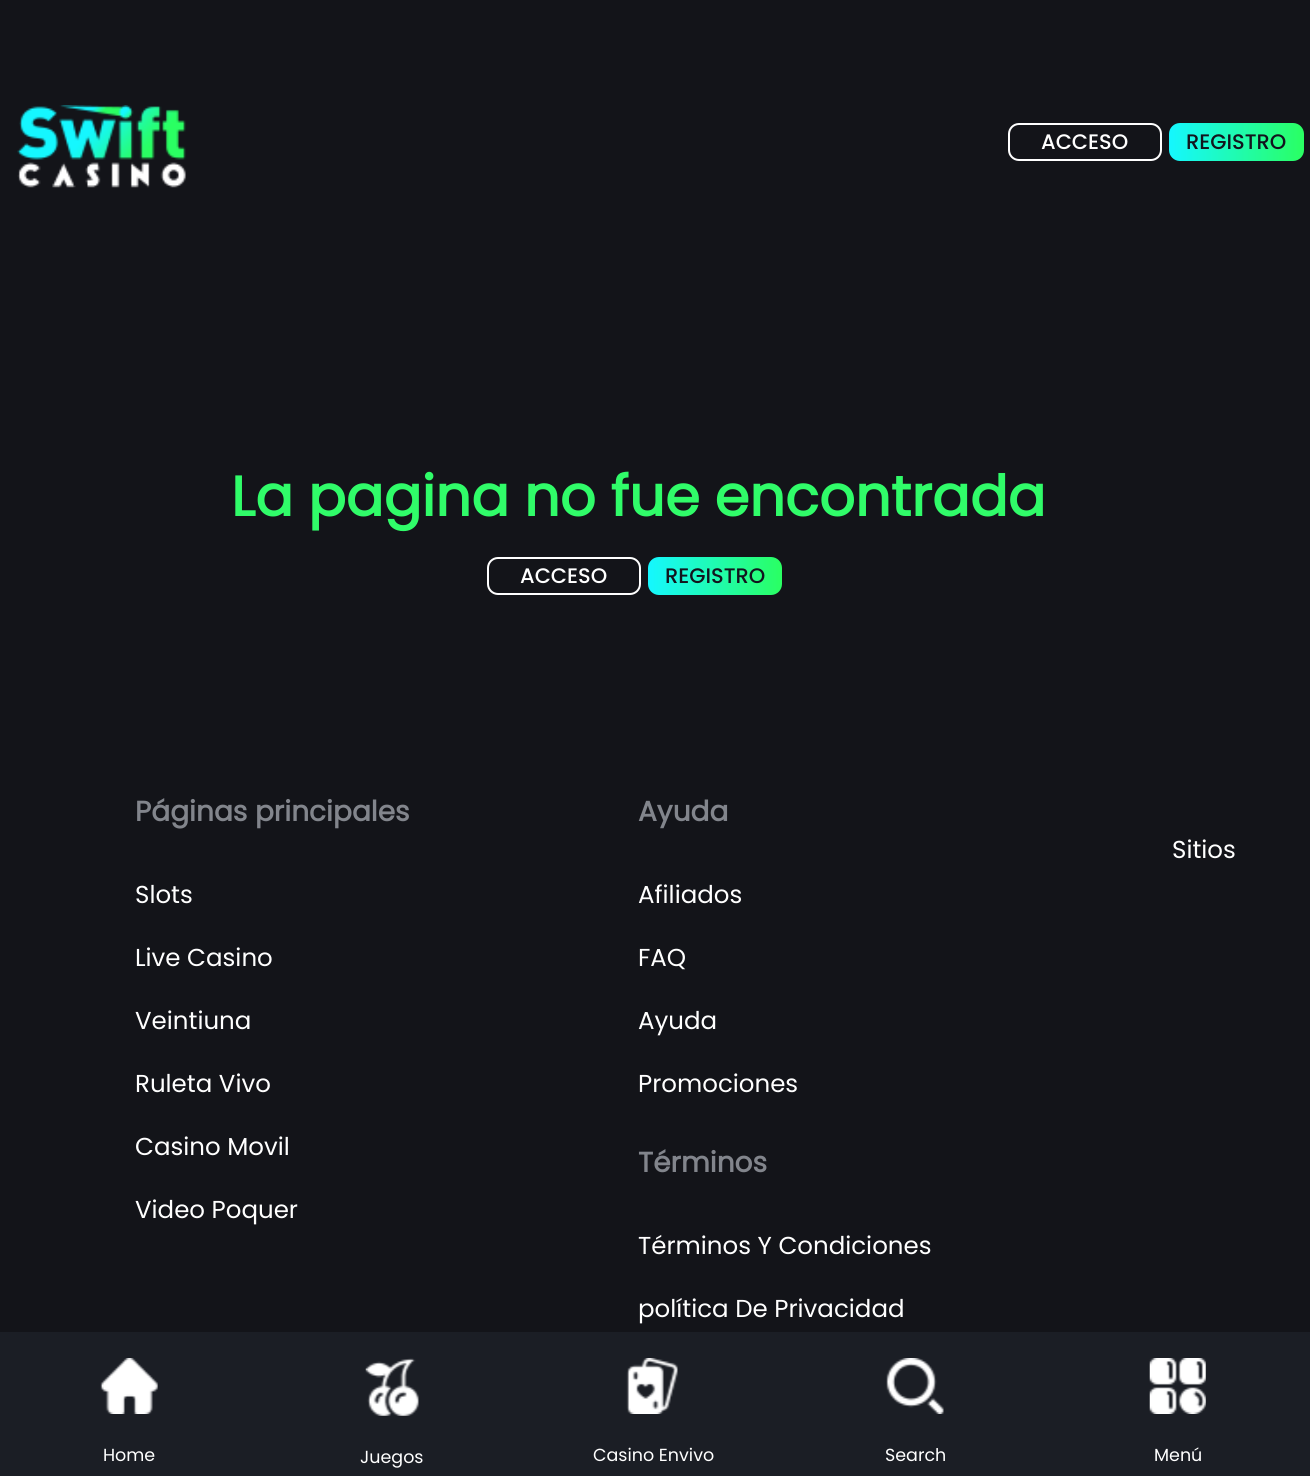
#include <cairo.h>
#include <math.h>
#include <stddef.h>


static void round_rect(cairo_t *cr, double x, double y, double w, double h, double r) {
    cairo_new_sub_path(cr);
    cairo_arc(cr, x + w - r, y + h - r, r, 0, M_PI / 2);
    cairo_arc(cr, x + r, y + h - r, r, M_PI / 2, M_PI);
    cairo_arc(cr, x + r, y + r, r, M_PI, 1.5 * M_PI);
    cairo_arc(cr, x + w - r, y + r, r, 1.5 * M_PI, 2 * M_PI);
    cairo_close_path(cr);
}

static void picture(cairo_t *cr, const char *path, double x, double y, double w, double h) {
    cairo_surface_t *image = cairo_image_surface_create_from_png(path);
    cairo_save(cr);
    cairo_set_source_surface(cr, image, x, y);
    cairo_rectangle(cr, x, y, w, h);
    cairo_fill(cr);
    cairo_restore(cr);
    cairo_surface_destroy(image);
}

int main(void) {
    cairo_surface_t *surface = cairo_image_surface_create(CAIRO_FORMAT_RGB24, 1310, 1476);
    cairo_t *cr = cairo_create(surface);
    cairo_font_options_t *options = cairo_font_options_create();
    cairo_font_options_set_hint_metrics(options, CAIRO_HINT_METRICS_OFF);
    cairo_font_options_set_hint_style(options, CAIRO_HINT_STYLE_NONE);
    cairo_set_font_options(cr, options);
    cairo_set_miter_limit(cr, 4);
    cairo_pattern_t *gradient;
    cairo_set_source_rgb(cr, 0.078, 0.082, 0.098);
    cairo_paint(cr);
    picture(cr, "img1.png", 17, 105, 169, 83);
    round_rect(cr, 1009, 124, 152, 36, 10);
    cairo_set_source_rgb(cr, 1, 1, 1);
    cairo_stroke(cr);
    cairo_select_font_face(cr, "Poppins Medium", CAIRO_FONT_SLANT_NORMAL, CAIRO_FONT_WEIGHT_NORMAL);
    cairo_set_font_size(cr, 21);
    cairo_move_to(cr, 1041, 149);
    cairo_show_text(cr, "ACCESO");
    gradient = cairo_pattern_create_linear(1169, 142, 1304, 142);
    cairo_pattern_add_color_stop_rgba(gradient, 0, 0.082, 0.969, 1, 1);
    cairo_pattern_add_color_stop_rgba(gradient, 1, 0.165, 1, 0.384, 1);
    cairo_set_source(cr, gradient);
    cairo_pattern_destroy(gradient);
    round_rect(cr, 1169, 123, 135, 38, 11);
    cairo_fill(cr);
    cairo_set_source_rgb(cr, 0.071, 0.082, 0.114);
    cairo_move_to(cr, 1186, 149);
    cairo_show_text(cr, "REGISTRO");
    cairo_select_font_face(cr, "Poppins", CAIRO_FONT_SLANT_NORMAL, CAIRO_FONT_WEIGHT_BOLD);
    cairo_set_font_size(cr, 56);
    cairo_set_source_rgb(cr, 0.188, 0.988, 0.412);
    cairo_move_to(cr, 231, 516);
    cairo_show_text(cr, "La pagina no fue encontrada");
    round_rect(cr, 488, 558, 152, 36, 10);
    cairo_set_source_rgb(cr, 1, 1, 1);
    cairo_stroke(cr);
    cairo_select_font_face(cr, "Poppins Medium", CAIRO_FONT_SLANT_NORMAL, CAIRO_FONT_WEIGHT_NORMAL);
    cairo_set_font_size(cr, 21);
    cairo_move_to(cr, 520, 583);
    cairo_show_text(cr, "ACCESO");
    gradient = cairo_pattern_create_linear(648, 576, 782, 576);
    cairo_pattern_add_color_stop_rgba(gradient, 0, 0.082, 0.969, 1, 1);
    cairo_pattern_add_color_stop_rgba(gradient, 1, 0.165, 1, 0.384, 1);
    cairo_set_source(cr, gradient);
    cairo_pattern_destroy(gradient);
    round_rect(cr, 648, 557, 134, 38, 11);
    cairo_fill(cr);
    cairo_set_source_rgb(cr, 0.071, 0.082, 0.114);
    cairo_move_to(cr, 665, 583);
    cairo_show_text(cr, "REGISTRO");
    cairo_select_font_face(cr, "Poppins", CAIRO_FONT_SLANT_NORMAL, CAIRO_FONT_WEIGHT_BOLD);
    cairo_set_font_size(cr, 28);
    cairo_set_source_rgb(cr, 0.51, 0.522, 0.549);
    cairo_move_to(cr, 135, 821);
    cairo_show_text(cr, "Páginas principales");
    cairo_select_font_face(cr, "Poppins", CAIRO_FONT_SLANT_NORMAL, CAIRO_FONT_WEIGHT_NORMAL);
    cairo_set_font_size(cr, 24.5);
    cairo_set_source_rgb(cr, 1, 1, 1);
    cairo_move_to(cr, 135, 903);
    cairo_show_text(cr, "Slots");
    cairo_move_to(cr, 135, 966);
    cairo_show_text(cr, "Live Casino");
    cairo_move_to(cr, 135, 1029);
    cairo_show_text(cr, "Veintiuna");
    cairo_move_to(cr, 135, 1092);
    cairo_show_text(cr, "Ruleta Vivo");
    cairo_move_to(cr, 135, 1155);
    cairo_show_text(cr, "Casino Movil");
    cairo_move_to(cr, 135, 1218);
    cairo_show_text(cr, "Video Poquer");
    cairo_select_font_face(cr, "Poppins", CAIRO_FONT_SLANT_NORMAL, CAIRO_FONT_WEIGHT_BOLD);
    cairo_set_font_size(cr, 28);
    cairo_set_source_rgb(cr, 0.51, 0.522, 0.549);
    cairo_move_to(cr, 638, 821);
    cairo_show_text(cr, "Ayuda");
    cairo_select_font_face(cr, "Poppins", CAIRO_FONT_SLANT_NORMAL, CAIRO_FONT_WEIGHT_NORMAL);
    cairo_set_font_size(cr, 24.5);
    cairo_set_source_rgb(cr, 1, 1, 1);
    cairo_move_to(cr, 638, 903);
    cairo_show_text(cr, "Afiliados");
    cairo_move_to(cr, 638, 966);
    cairo_show_text(cr, "FAQ");
    cairo_move_to(cr, 638, 1029);
    cairo_show_text(cr, "Ayuda");
    cairo_move_to(cr, 638, 1092);
    cairo_show_text(cr, "Promociones");
    cairo_select_font_face(cr, "Poppins", CAIRO_FONT_SLANT_NORMAL, CAIRO_FONT_WEIGHT_BOLD);
    cairo_set_font_size(cr, 28);
    cairo_set_source_rgb(cr, 0.51, 0.522, 0.549);
    cairo_move_to(cr, 638, 1172);
    cairo_show_text(cr, "Términos");
    cairo_select_font_face(cr, "Poppins", CAIRO_FONT_SLANT_NORMAL, CAIRO_FONT_WEIGHT_NORMAL);
    cairo_set_font_size(cr, 24.5);
    cairo_set_source_rgb(cr, 1, 1, 1);
    cairo_move_to(cr, 638, 1254);
    cairo_show_text(cr, "Términos Y Condiciones");
    cairo_move_to(cr, 638, 1317);
    cairo_show_text(cr, "política De Privacidad");
    cairo_move_to(cr, 1172, 858);
    cairo_show_text(cr, "Sitios");
    cairo_set_source_rgb(cr, 0.106, 0.118, 0.145);
    cairo_rectangle(cr, 0, 1332, 1310, 144);
    cairo_fill(cr);
    picture(cr, "img2.png", 100, 1358, 58, 56);
    cairo_set_font_size(cr, 17.5);
    cairo_set_source_rgb(cr, 1, 1, 1);
    cairo_move_to(cr, 103, 1461);
    cairo_show_text(cr, "Home");
    picture(cr, "img3.png", 365, 1358, 54, 58);
    cairo_move_to(cr, 360, 1463);
    cairo_show_text(cr, "Juegos");
    picture(cr, "img4.png", 626, 1358, 52, 56);
    cairo_move_to(cr, 593, 1461);
    cairo_show_text(cr, "Casino Envivo");
    picture(cr, "img5.png", 886, 1358, 58, 56);
    cairo_move_to(cr, 885, 1461);
    cairo_show_text(cr, "Search");
    picture(cr, "img6.png", 1149, 1358, 57, 56);
    cairo_move_to(cr, 1154, 1461);
    cairo_show_text(cr, "Menú");
    cairo_surface_write_to_png(surface, "page.png");
    cairo_font_options_destroy(options);
    cairo_destroy(cr);
    cairo_surface_destroy(surface);
    return 0;
}
